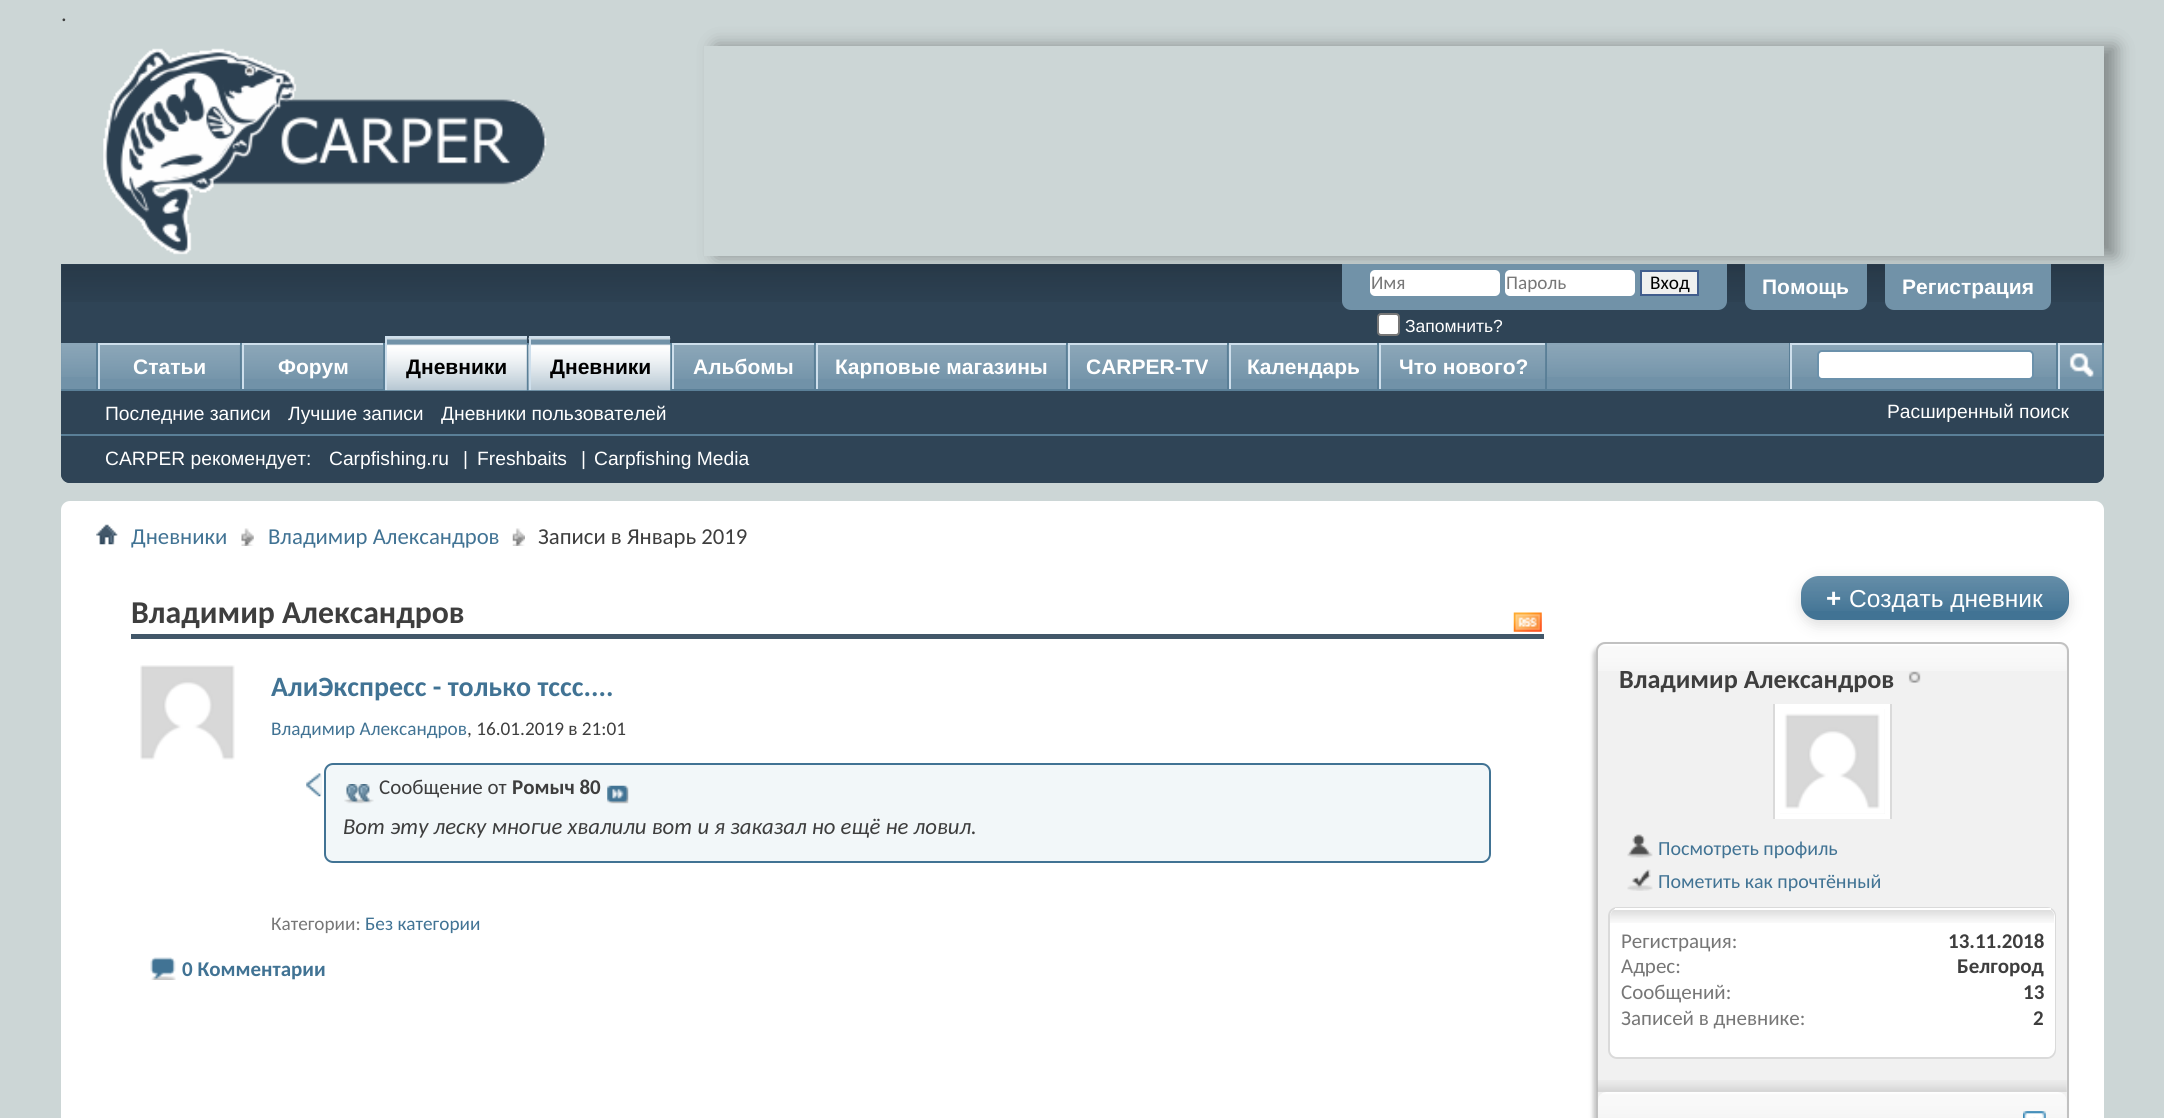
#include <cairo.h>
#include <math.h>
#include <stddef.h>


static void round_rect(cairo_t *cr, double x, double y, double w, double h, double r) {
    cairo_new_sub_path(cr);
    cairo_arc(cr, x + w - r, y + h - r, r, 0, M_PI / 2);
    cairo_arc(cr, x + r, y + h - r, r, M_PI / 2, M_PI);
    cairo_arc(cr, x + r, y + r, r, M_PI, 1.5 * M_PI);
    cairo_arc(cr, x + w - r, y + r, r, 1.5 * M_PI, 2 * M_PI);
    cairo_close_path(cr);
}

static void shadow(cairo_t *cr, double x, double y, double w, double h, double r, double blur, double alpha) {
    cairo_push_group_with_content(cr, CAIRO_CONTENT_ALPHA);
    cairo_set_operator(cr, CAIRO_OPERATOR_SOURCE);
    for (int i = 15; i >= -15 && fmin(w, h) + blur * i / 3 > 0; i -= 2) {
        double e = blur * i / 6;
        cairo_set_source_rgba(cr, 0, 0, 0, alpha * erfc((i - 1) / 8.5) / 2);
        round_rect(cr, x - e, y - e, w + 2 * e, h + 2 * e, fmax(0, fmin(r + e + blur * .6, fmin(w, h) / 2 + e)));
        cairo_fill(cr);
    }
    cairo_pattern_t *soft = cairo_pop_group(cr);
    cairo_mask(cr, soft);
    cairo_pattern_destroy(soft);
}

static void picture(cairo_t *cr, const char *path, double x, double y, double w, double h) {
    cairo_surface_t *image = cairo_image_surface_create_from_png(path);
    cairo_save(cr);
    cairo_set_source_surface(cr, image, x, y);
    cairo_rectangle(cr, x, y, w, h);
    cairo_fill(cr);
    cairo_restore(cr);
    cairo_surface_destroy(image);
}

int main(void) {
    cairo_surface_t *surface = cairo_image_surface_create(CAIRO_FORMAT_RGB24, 2164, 1118);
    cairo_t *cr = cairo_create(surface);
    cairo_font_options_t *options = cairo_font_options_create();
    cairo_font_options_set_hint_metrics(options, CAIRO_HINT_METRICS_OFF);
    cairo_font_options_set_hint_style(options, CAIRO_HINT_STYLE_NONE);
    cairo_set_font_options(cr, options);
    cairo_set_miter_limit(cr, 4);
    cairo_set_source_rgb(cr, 0.8, 0.839, 0.839);
    cairo_paint(cr);
    cairo_select_font_face(cr, "Carlito", CAIRO_FONT_SLANT_NORMAL, CAIRO_FONT_WEIGHT_NORMAL);
    cairo_set_font_size(cr, 22.75);
    cairo_set_source_rgb(cr, 0.243, 0.243, 0.243);
    cairo_move_to(cr, 61, 21);
    cairo_show_text(cr, ".");
    picture(cr, "img1.png", 103, 48, 444, 207);
    cairo_set_source_rgb(cr, 0.184, 0.267, 0.337);
    cairo_new_path(cr);
    cairo_move_to(cr, 61, 264);
    cairo_line_to(cr, 2104, 264);
    cairo_line_to(cr, 2104, 474);
    cairo_curve_to(cr, 2104, 479, 2100, 483, 2095, 483);
    cairo_line_to(cr, 70, 483);
    cairo_curve_to(cr, 65, 483, 61, 479, 61, 474);
    cairo_close_path(cr);
    cairo_fill(cr);
    picture(cr, "img2.png", 61, 264, 2042, 38);
    cairo_save(cr);
    cairo_set_fill_rule(cr, CAIRO_FILL_RULE_EVEN_ODD);
    cairo_new_path(cr);
    cairo_move_to(cr, 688, 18);
    cairo_line_to(cr, 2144, 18);
    cairo_line_to(cr, 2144, 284);
    cairo_line_to(cr, 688, 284);
    cairo_close_path(cr);
    cairo_move_to(cr, 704, 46);
    cairo_line_to(cr, 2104, 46);
    cairo_line_to(cr, 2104, 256);
    cairo_line_to(cr, 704, 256);
    cairo_close_path(cr);
    cairo_clip(cr);
    cairo_set_source_rgb(cr, 0, 0, 0);
    shadow(cr, 716, 46, 1400, 210, 0, 9, 0.35);
    cairo_restore(cr);
    cairo_set_source_rgb(cr, 0.443, 0.573, 0.659);
    cairo_new_path(cr);
    cairo_move_to(cr, 1342, 264);
    cairo_line_to(cr, 1727, 264);
    cairo_line_to(cr, 1727, 301);
    cairo_curve_to(cr, 1727, 306, 1723, 310, 1718, 310);
    cairo_line_to(cr, 1351, 310);
    cairo_curve_to(cr, 1346, 310, 1342, 306, 1342, 301);
    cairo_close_path(cr);
    cairo_fill(cr);
    cairo_set_source_rgb(cr, 1, 1, 1);
    round_rect(cr, 1370, 270, 130, 26, 5);
    cairo_fill(cr);
    cairo_set_font_size(cr, 19.25);
    cairo_set_source_rgb(cr, 0.467, 0.467, 0.467);
    cairo_move_to(cr, 1371, 289);
    cairo_show_text(cr, "Имя");
    cairo_set_source_rgb(cr, 1, 1, 1);
    round_rect(cr, 1505, 270, 130, 26, 5);
    cairo_fill(cr);
    cairo_set_source_rgb(cr, 0.467, 0.467, 0.467);
    cairo_move_to(cr, 1506, 289);
    cairo_show_text(cr, "Пароль");
    cairo_set_source_rgb(cr, 0.937, 0.937, 0.937);
    cairo_rectangle(cr, 1641, 271, 57, 24);
    cairo_fill_preserve(cr);
    cairo_set_source_rgb(cr, 0.255, 0.365, 0.553);
    cairo_stroke(cr);
    cairo_set_source_rgb(cr, 0, 0, 0);
    cairo_move_to(cr, 1650, 289);
    cairo_show_text(cr, "Вход");
    cairo_set_source_rgb(cr, 1, 1, 1);
    round_rect(cr, 1378, 314, 21, 21, 3);
    cairo_fill_preserve(cr);
    cairo_set_source_rgb(cr, 0.463, 0.463, 0.463);
    cairo_stroke(cr);
    cairo_select_font_face(cr, "Liberation Sans", CAIRO_FONT_SLANT_NORMAL, CAIRO_FONT_WEIGHT_NORMAL);
    cairo_set_font_size(cr, 17.5);
    cairo_set_source_rgb(cr, 1, 1, 1);
    cairo_move_to(cr, 1405, 332);
    cairo_show_text(cr, "Запомнить?");
    cairo_set_source_rgb(cr, 0.443, 0.573, 0.659);
    cairo_new_path(cr);
    cairo_move_to(cr, 1745, 264);
    cairo_line_to(cr, 1867, 264);
    cairo_line_to(cr, 1867, 301);
    cairo_curve_to(cr, 1867, 306, 1863, 310, 1858, 310);
    cairo_line_to(cr, 1754, 310);
    cairo_curve_to(cr, 1749, 310, 1745, 306, 1745, 301);
    cairo_close_path(cr);
    cairo_fill(cr);
    cairo_select_font_face(cr, "Liberation Sans", CAIRO_FONT_SLANT_NORMAL, CAIRO_FONT_WEIGHT_BOLD);
    cairo_set_font_size(cr, 21);
    cairo_set_source_rgb(cr, 1, 1, 1);
    cairo_move_to(cr, 1762, 294);
    cairo_show_text(cr, "Помощь");
    cairo_set_source_rgb(cr, 0.443, 0.573, 0.659);
    cairo_new_path(cr);
    cairo_move_to(cr, 1885, 264);
    cairo_line_to(cr, 2051, 264);
    cairo_line_to(cr, 2051, 301);
    cairo_curve_to(cr, 2051, 306, 2047, 310, 2042, 310);
    cairo_line_to(cr, 1894, 310);
    cairo_curve_to(cr, 1889, 310, 1885, 306, 1885, 301);
    cairo_close_path(cr);
    cairo_fill(cr);
    cairo_set_source_rgb(cr, 1, 1, 1);
    cairo_move_to(cr, 1902, 294);
    cairo_show_text(cr, "Регистрация");
    cairo_set_source_rgb(cr, 0.184, 0.267, 0.337);
    cairo_new_path(cr);
    cairo_move_to(cr, 61, 343);
    cairo_line_to(cr, 2104, 343);
    cairo_line_to(cr, 2104, 474);
    cairo_curve_to(cr, 2104, 479, 2100, 483, 2095, 483);
    cairo_line_to(cr, 70, 483);
    cairo_curve_to(cr, 65, 483, 61, 479, 61, 474);
    cairo_close_path(cr);
    cairo_fill(cr);
    cairo_set_source_rgb(cr, 0.443, 0.573, 0.659);
    cairo_rectangle(cr, 61, 343, 2041, 46);
    cairo_fill(cr);
    picture(cr, "img3.png", 61, 343, 2041, 34);
    cairo_set_source_rgb(cr, 0.353, 0.498, 0.592);
    cairo_rectangle(cr, 814, 343, 2, 47);
    cairo_fill(cr);
    cairo_set_source_rgb(cr, 0.443, 0.573, 0.659);
    cairo_rectangle(cr, 674, 345, 140, 32);
    cairo_fill(cr);
    picture(cr, "img4.png", 674, 345, 140, 34);
    cairo_set_source_rgb(cr, 0.808, 0.875, 0.922);
    cairo_rectangle(cr, 672, 343, 142, 2);
    cairo_fill(cr);
    cairo_rectangle(cr, 672, 343, 2, 47);
    cairo_fill(cr);
    cairo_set_source_rgb(cr, 1, 1, 1);
    cairo_move_to(cr, 693, 374);
    cairo_show_text(cr, "Альбомы");
    cairo_set_source_rgb(cr, 0.353, 0.498, 0.592);
    cairo_rectangle(cr, 670, 343, 2, 46);
    cairo_fill(cr);
    cairo_rectangle(cr, 240, 343, 2, 47);
    cairo_fill(cr);
    cairo_rectangle(cr, 96, 343, 2, 47);
    cairo_fill(cr);
    cairo_set_source_rgb(cr, 0.808, 0.875, 0.922);
    cairo_rectangle(cr, 98, 343, 142, 2);
    cairo_fill(cr);
    cairo_rectangle(cr, 98, 343, 2, 47);
    cairo_fill(cr);
    cairo_set_source_rgb(cr, 0.353, 0.498, 0.592);
    cairo_rectangle(cr, 383, 343, 2, 47);
    cairo_fill(cr);
    cairo_set_source_rgb(cr, 0.443, 0.573, 0.659);
    cairo_rectangle(cr, 244, 345, 139, 32);
    cairo_fill(cr);
    picture(cr, "img7.png", 241, 344, 143, 35);
    cairo_set_source_rgb(cr, 0.808, 0.875, 0.922);
    cairo_rectangle(cr, 242, 343, 141, 2);
    cairo_fill(cr);
    cairo_rectangle(cr, 242, 343, 2, 47);
    cairo_fill(cr);
    cairo_set_source_rgb(cr, 0.353, 0.498, 0.592);
    cairo_rectangle(cr, 1066, 343, 2, 47);
    cairo_fill(cr);
    cairo_set_source_rgb(cr, 0.443, 0.573, 0.659);
    cairo_rectangle(cr, 818, 345, 248, 32);
    cairo_fill(cr);
    picture(cr, "img8.png", 815, 344, 251, 35);
    cairo_set_source_rgb(cr, 0.808, 0.875, 0.922);
    cairo_rectangle(cr, 816, 343, 250, 2);
    cairo_fill(cr);
    cairo_rectangle(cr, 816, 343, 2, 47);
    cairo_fill(cr);
    cairo_set_source_rgb(cr, 0.353, 0.498, 0.592);
    cairo_rectangle(cr, 1227, 343, 2, 47);
    cairo_fill(cr);
    cairo_set_source_rgb(cr, 0.443, 0.573, 0.659);
    cairo_rectangle(cr, 1070, 345, 157, 32);
    cairo_fill(cr);
    picture(cr, "img9.png", 1067, 344, 160, 35);
    cairo_set_source_rgb(cr, 0.808, 0.875, 0.922);
    cairo_rectangle(cr, 1068, 343, 159, 2);
    cairo_fill(cr);
    cairo_rectangle(cr, 1068, 343, 2, 47);
    cairo_fill(cr);
    cairo_set_source_rgb(cr, 0.353, 0.498, 0.592);
    cairo_rectangle(cr, 1377, 343, 2, 47);
    cairo_fill(cr);
    cairo_set_source_rgb(cr, 0.443, 0.573, 0.659);
    cairo_rectangle(cr, 1231, 345, 146, 32);
    cairo_fill(cr);
    picture(cr, "img10.png", 1228, 344, 150, 35);
    cairo_set_source_rgb(cr, 0.808, 0.875, 0.922);
    cairo_rectangle(cr, 1229, 343, 148, 2);
    cairo_fill(cr);
    cairo_rectangle(cr, 1229, 343, 2, 47);
    cairo_fill(cr);
    cairo_set_source_rgb(cr, 0.353, 0.498, 0.592);
    cairo_rectangle(cr, 1545, 343, 2, 47);
    cairo_fill(cr);
    cairo_set_source_rgb(cr, 0.808, 0.875, 0.922);
    cairo_rectangle(cr, 1379, 343, 166, 2);
    cairo_fill(cr);
    cairo_rectangle(cr, 1379, 343, 2, 47);
    cairo_fill(cr);
    cairo_set_source_rgb(cr, 0.353, 0.498, 0.592);
    cairo_rectangle(cr, 61, 389, 2043, 2);
    cairo_fill(cr);
    cairo_set_source_rgb(cr, 0.443, 0.573, 0.659);
    cairo_rectangle(cr, 531, 338, 139, 52);
    cairo_fill(cr);
    cairo_set_source_rgb(cr, 0.353, 0.498, 0.592);
    cairo_rectangle(cr, 527, 343, 2, 46);
    cairo_fill(cr);
    picture(cr, "img5.png", 528, 337, 143, 54);
    cairo_set_source_rgb(cr, 0.808, 0.875, 0.922);
    cairo_rectangle(cr, 529, 336, 141, 2);
    cairo_fill(cr);
    cairo_rectangle(cr, 529, 336, 2, 54);
    cairo_fill(cr);
    cairo_set_source_rgb(cr, 0, 0, 0);
    cairo_move_to(cr, 550, 374);
    cairo_show_text(cr, "Дневники");
    cairo_set_source_rgb(cr, 0.353, 0.498, 0.592);
    cairo_rectangle(cr, 61, 434, 2043, 2);
    cairo_fill(cr);
    cairo_select_font_face(cr, "Liberation Sans", CAIRO_FONT_SLANT_NORMAL, CAIRO_FONT_WEIGHT_NORMAL);
    cairo_set_font_size(cr, 19.25);
    cairo_set_source_rgb(cr, 1, 1, 1);
    cairo_move_to(cr, 105, 465);
    cairo_show_text(cr, "CARPER рекомендует:");
    cairo_move_to(cr, 329, 465);
    cairo_show_text(cr, "Carpfishing.ru");
    cairo_move_to(cr, 463, 465);
    cairo_show_text(cr, "|");
    cairo_move_to(cr, 477, 465);
    cairo_show_text(cr, "Freshbaits");
    cairo_move_to(cr, 581, 465);
    cairo_show_text(cr, "|");
    cairo_move_to(cr, 594, 465);
    cairo_show_text(cr, "Carpfishing Media");
    cairo_set_source_rgb(cr, 0.443, 0.573, 0.659);
    cairo_rectangle(cr, 387, 338, 140, 52);
    cairo_fill(cr);
    picture(cr, "img6.png", 385, 338, 142, 53);
    cairo_set_source_rgb(cr, 0.808, 0.875, 0.922);
    cairo_rectangle(cr, 385, 336, 142, 2);
    cairo_fill(cr);
    cairo_rectangle(cr, 385, 336, 2, 54);
    cairo_fill(cr);
    cairo_select_font_face(cr, "Liberation Sans", CAIRO_FONT_SLANT_NORMAL, CAIRO_FONT_WEIGHT_BOLD);
    cairo_set_font_size(cr, 21);
    cairo_set_source_rgb(cr, 0, 0, 0);
    cairo_move_to(cr, 406, 374);
    cairo_show_text(cr, "Дневники");
    cairo_select_font_face(cr, "Liberation Sans", CAIRO_FONT_SLANT_NORMAL, CAIRO_FONT_WEIGHT_NORMAL);
    cairo_set_font_size(cr, 19.25);
    cairo_set_source_rgb(cr, 1, 1, 1);
    cairo_move_to(cr, 105, 420);
    cairo_show_text(cr, "Последние записи");
    cairo_move_to(cr, 288, 420);
    cairo_show_text(cr, "Лучшие записи");
    cairo_move_to(cr, 441, 420);
    cairo_show_text(cr, "Дневники пользователей");
    cairo_set_source_rgb(cr, 0.443, 0.573, 0.659);
    cairo_rectangle(cr, 100, 345, 140, 32);
    cairo_fill(cr);
    picture(cr, "img4.png", 100, 345, 140, 34);
    cairo_select_font_face(cr, "Liberation Sans", CAIRO_FONT_SLANT_NORMAL, CAIRO_FONT_WEIGHT_BOLD);
    cairo_set_font_size(cr, 21);
    cairo_set_source_rgb(cr, 1, 1, 1);
    cairo_move_to(cr, 133, 374);
    cairo_show_text(cr, "Статьи");
    cairo_move_to(cr, 278, 374);
    cairo_show_text(cr, "Форум");
    cairo_move_to(cr, 835, 374);
    cairo_show_text(cr, "Карповые магазины");
    cairo_move_to(cr, 1086, 374);
    cairo_show_text(cr, "CARPER-TV");
    cairo_move_to(cr, 1247, 374);
    cairo_show_text(cr, "Календарь");
    cairo_set_source_rgb(cr, 0.443, 0.573, 0.659);
    cairo_rectangle(cr, 1381, 345, 164, 32);
    cairo_fill(cr);
    picture(cr, "img11.png", 1381, 345, 165, 34);
    cairo_set_source_rgb(cr, 1, 1, 1);
    cairo_move_to(cr, 1399, 374);
    cairo_show_text(cr, "Что нового?");
    cairo_set_source_rgb(cr, 0.353, 0.498, 0.592);
    cairo_rectangle(cr, 1789, 343, 1, 46);
    cairo_fill(cr);
    cairo_set_source_rgb(cr, 0.808, 0.875, 0.922);
    cairo_rectangle(cr, 1790, 343, 266, 2);
    cairo_fill(cr);
    cairo_rectangle(cr, 1790, 343, 2, 46);
    cairo_fill(cr);
    cairo_set_source_rgb(cr, 1, 1, 1);
    round_rect(cr, 1818, 351, 215, 28, 4);
    cairo_fill_preserve(cr);
    cairo_set_source_rgb(cr, 0.42, 0.569, 0.671);
    cairo_stroke(cr);
    cairo_set_source_rgb(cr, 0.353, 0.498, 0.592);
    cairo_rectangle(cr, 2102, 343, 2, 46);
    cairo_fill(cr);
    cairo_rectangle(cr, 2056, 343, 2, 46);
    cairo_fill(cr);
    cairo_set_source_rgb(cr, 0.808, 0.875, 0.922);
    cairo_rectangle(cr, 2058, 343, 44, 2);
    cairo_fill(cr);
    cairo_rectangle(cr, 2058, 343, 2, 46);
    cairo_fill(cr);
    picture(cr, "img12.png", 2069, 353, 25, 25);
    cairo_select_font_face(cr, "Liberation Sans", CAIRO_FONT_SLANT_NORMAL, CAIRO_FONT_WEIGHT_NORMAL);
    cairo_set_font_size(cr, 19.25);
    cairo_set_source_rgb(cr, 1, 1, 1);
    cairo_move_to(cr, 1887, 418);
    cairo_show_text(cr, "Расширенный поиск");
    round_rect(cr, 61, 501, 2043, 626, 9);
    cairo_fill(cr);
    picture(cr, "img13.png", 96, 524, 22, 21);
    picture(cr, "img14.png", 241, 528, 13, 18);
    cairo_select_font_face(cr, "Carlito", CAIRO_FONT_SLANT_NORMAL, CAIRO_FONT_WEIGHT_NORMAL);
    cairo_set_font_size(cr, 22.75);
    cairo_set_source_rgb(cr, 0.255, 0.451, 0.58);
    cairo_move_to(cr, 131, 544);
    cairo_show_text(cr, "Дневники");
    picture(cr, "img15.png", 512, 528, 13, 18);
    cairo_move_to(cr, 268, 544);
    cairo_show_text(cr, "Владимир Александров");
    cairo_set_source_rgb(cr, 0.243, 0.243, 0.243);
    cairo_move_to(cr, 538, 544);
    cairo_show_text(cr, "Записи в Январь 2019");
    cairo_set_source_rgb(cr, 0.259, 0.341, 0.412);
    cairo_rectangle(cr, 131, 634, 1413, 5);
    cairo_fill(cr);
    cairo_select_font_face(cr, "Carlito", CAIRO_FONT_SLANT_NORMAL, CAIRO_FONT_WEIGHT_BOLD);
    cairo_set_font_size(cr, 31.8);
    cairo_set_source_rgb(cr, 0.243, 0.243, 0.243);
    cairo_move_to(cr, 131, 623);
    cairo_show_text(cr, "Владимир Александров");
    picture(cr, "img16.png", 1513, 612, 29, 20);
    picture(cr, "img17.png", 140, 665, 95, 95);
    cairo_set_font_size(cr, 28);
    cairo_set_source_rgb(cr, 0.255, 0.451, 0.58);
    cairo_move_to(cr, 271, 696);
    cairo_show_text(cr, "АлиЭкспресс - только тссс....");
    cairo_select_font_face(cr, "Carlito", CAIRO_FONT_SLANT_NORMAL, CAIRO_FONT_WEIGHT_NORMAL);
    cairo_set_font_size(cr, 19.25);
    cairo_move_to(cr, 271, 735);
    cairo_show_text(cr, "Владимир Александров");
    cairo_set_source_rgb(cr, 0.243, 0.243, 0.243);
    cairo_move_to(cr, 467, 735);
    cairo_show_text(cr, ", 16.01.2019 в 21:01");
    cairo_set_source_rgb(cr, 0.949, 0.965, 0.973);
    round_rect(cr, 325, 764, 1165, 98, 8);
    cairo_fill_preserve(cr);
    cairo_set_source_rgb(cr, 0.255, 0.451, 0.58);
    cairo_stroke(cr);
    picture(cr, "img18.png", 306, 773, 16, 24);
    picture(cr, "img19.png", 344, 784, 30, 20);
    cairo_set_font_size(cr, 21);
    cairo_set_source_rgb(cr, 0.243, 0.243, 0.243);
    cairo_move_to(cr, 379, 794);
    cairo_show_text(cr, "Сообщение от");
    cairo_select_font_face(cr, "Carlito", CAIRO_FONT_SLANT_NORMAL, CAIRO_FONT_WEIGHT_BOLD);
    cairo_move_to(cr, 512, 794);
    cairo_show_text(cr, "Ромыч 80");
    picture(cr, "img20.png", 607, 785, 22, 19);
    cairo_select_font_face(cr, "Carlito", CAIRO_FONT_SLANT_ITALIC, CAIRO_FONT_WEIGHT_NORMAL);
    cairo_set_font_size(cr, 22.75);
    cairo_move_to(cr, 343, 834);
    cairo_show_text(cr, "Вот эту леску многие хвалили вот и я заказал но ещё не ловил.");
    cairo_select_font_face(cr, "Carlito", CAIRO_FONT_SLANT_NORMAL, CAIRO_FONT_WEIGHT_NORMAL);
    cairo_set_font_size(cr, 19.25);
    cairo_set_source_rgb(cr, 0.467, 0.467, 0.467);
    cairo_move_to(cr, 271, 930);
    cairo_show_text(cr, "Категории:");
    cairo_set_source_rgb(cr, 0.255, 0.451, 0.58);
    cairo_move_to(cr, 365, 930);
    cairo_show_text(cr, "Без категории");
    picture(cr, "img21.png", 150, 957, 26, 23);
    cairo_select_font_face(cr, "Carlito", CAIRO_FONT_SLANT_NORMAL, CAIRO_FONT_WEIGHT_BOLD);
    cairo_set_font_size(cr, 21);
    cairo_move_to(cr, 182, 976);
    cairo_show_text(cr, "0 Комментарии");
    cairo_set_source_rgb(cr, 0.784, 0.784, 0.784);
    shadow(cr, 1593, 646, 472, 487, 9, 2, 1);
    cairo_set_source_rgb(cr, 0.945, 0.945, 0.945);
    round_rect(cr, 1597, 643, 471, 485, 8);
    cairo_fill_preserve(cr);
    cairo_set_source_rgb(cr, 0.757, 0.757, 0.757);
    cairo_stroke(cr);
    picture(cr, "img23.png", 1598, 644, 469, 27);
    cairo_set_source_rgb(cr, 0.867, 0.867, 0.867);
    shadow(cr, 1801, 581, 268, 44, 18, 7, 1);
    cairo_set_source_rgb(cr, 0.255, 0.451, 0.58);
    round_rect(cr, 1801, 576, 268, 44, 18);
    cairo_fill(cr);
    picture(cr, "img22.png", 1801, 576, 268, 35);
    cairo_select_font_face(cr, "Liberation Sans", CAIRO_FONT_SLANT_NORMAL, CAIRO_FONT_WEIGHT_BOLD);
    cairo_set_font_size(cr, 26);
    cairo_set_source_rgb(cr, 1, 1, 1);
    cairo_move_to(cr, 1826, 607);
    cairo_show_text(cr, "+");
    cairo_select_font_face(cr, "Liberation Sans", CAIRO_FONT_SLANT_NORMAL, CAIRO_FONT_WEIGHT_NORMAL);
    cairo_set_font_size(cr, 24.5);
    cairo_move_to(cr, 1849, 607);
    cairo_show_text(cr, "Создать дневник");
    cairo_select_font_face(cr, "Carlito", CAIRO_FONT_SLANT_NORMAL, CAIRO_FONT_WEIGHT_BOLD);
    cairo_set_font_size(cr, 26.25);
    cairo_set_source_rgb(cr, 0.243, 0.243, 0.243);
    cairo_move_to(cr, 1619, 688);
    cairo_show_text(cr, "Владимир Александров");
    picture(cr, "img24.png", 1908, 671, 13, 12);
    cairo_rectangle(cr, 1777.5, 706.5, 110, 110);
    cairo_set_source_rgb(cr, 1, 1, 1);
    cairo_set_line_width(cr, 5);
    cairo_stroke(cr);
    picture(cr, "img25.png", 1780, 709, 105, 105);
    cairo_save(cr);
    cairo_rectangle(cr, 1608, 704, 448, 115);
    cairo_clip(cr);
    cairo_rectangle(cr, 1774, 703, 117, 117);
    cairo_set_source_rgb(cr, 0.855, 0.855, 0.855);
    cairo_set_line_width(cr, 2);
    cairo_stroke(cr);
    cairo_restore(cr);
    picture(cr, "img26.png", 1627, 834, 26, 24);
    cairo_select_font_face(cr, "Carlito", CAIRO_FONT_SLANT_NORMAL, CAIRO_FONT_WEIGHT_NORMAL);
    cairo_set_font_size(cr, 20);
    cairo_set_source_rgb(cr, 0.255, 0.451, 0.58);
    cairo_move_to(cr, 1658, 855);
    cairo_show_text(cr, "Посмотреть профиль");
    picture(cr, "img27.png", 1627, 869, 26, 22);
    cairo_move_to(cr, 1658, 888);
    cairo_show_text(cr, "Пометить как прочтённый");
    cairo_set_source_rgb(cr, 1, 1, 1);
    round_rect(cr, 1609, 908, 446, 150, 8);
    cairo_fill_preserve(cr);
    cairo_set_source_rgb(cr, 0.855, 0.855, 0.855);
    cairo_set_line_width(cr, 2);
    cairo_stroke(cr);
    cairo_set_source_rgb(cr, 1, 1, 1);
    round_rect(cr, 1610, 908, 445, 149, 9);
    cairo_fill(cr);
    picture(cr, "img28.png", 1610, 910, 444, 13);
    cairo_rectangle(cr, 1615, 908, 436, 2);
    cairo_fill(cr);
    cairo_set_font_size(cr, 21);
    cairo_set_source_rgb(cr, 0.467, 0.467, 0.467);
    cairo_move_to(cr, 1621, 948);
    cairo_show_text(cr, "Регистрация:");
    cairo_select_font_face(cr, "Carlito", CAIRO_FONT_SLANT_NORMAL, CAIRO_FONT_WEIGHT_BOLD);
    cairo_set_source_rgb(cr, 0.243, 0.243, 0.243);
    cairo_move_to(cr, 1948, 948);
    cairo_show_text(cr, "13.11.2018");
    cairo_select_font_face(cr, "Carlito", CAIRO_FONT_SLANT_NORMAL, CAIRO_FONT_WEIGHT_NORMAL);
    cairo_set_source_rgb(cr, 0.467, 0.467, 0.467);
    cairo_move_to(cr, 1621, 973);
    cairo_show_text(cr, "Адрес:");
    cairo_select_font_face(cr, "Carlito", CAIRO_FONT_SLANT_NORMAL, CAIRO_FONT_WEIGHT_BOLD);
    cairo_set_source_rgb(cr, 0.243, 0.243, 0.243);
    cairo_move_to(cr, 1957, 973);
    cairo_show_text(cr, "Белгород");
    cairo_select_font_face(cr, "Carlito", CAIRO_FONT_SLANT_NORMAL, CAIRO_FONT_WEIGHT_NORMAL);
    cairo_set_source_rgb(cr, 0.467, 0.467, 0.467);
    cairo_move_to(cr, 1621, 999);
    cairo_show_text(cr, "Сообщений:");
    cairo_select_font_face(cr, "Carlito", CAIRO_FONT_SLANT_NORMAL, CAIRO_FONT_WEIGHT_BOLD);
    cairo_set_source_rgb(cr, 0.243, 0.243, 0.243);
    cairo_move_to(cr, 2023, 999);
    cairo_show_text(cr, "13");
    cairo_select_font_face(cr, "Carlito", CAIRO_FONT_SLANT_NORMAL, CAIRO_FONT_WEIGHT_NORMAL);
    cairo_set_source_rgb(cr, 0.467, 0.467, 0.467);
    cairo_move_to(cr, 1621, 1025);
    cairo_show_text(cr, "Записей в дневнике:");
    cairo_select_font_face(cr, "Carlito", CAIRO_FONT_SLANT_NORMAL, CAIRO_FONT_WEIGHT_BOLD);
    cairo_set_source_rgb(cr, 0.243, 0.243, 0.243);
    cairo_move_to(cr, 2033, 1025);
    cairo_show_text(cr, "2");
    picture(cr, "img29.png", 1597, 1080, 470, 12);
    picture(cr, "img30.png", 1598, 1092, 469, 26);
    picture(cr, "img31.png", 2023, 1111, 23, 7);
    cairo_surface_write_to_png(surface, "page.png");
    cairo_font_options_destroy(options);
    cairo_destroy(cr);
    cairo_surface_destroy(surface);
    return 0;
}
